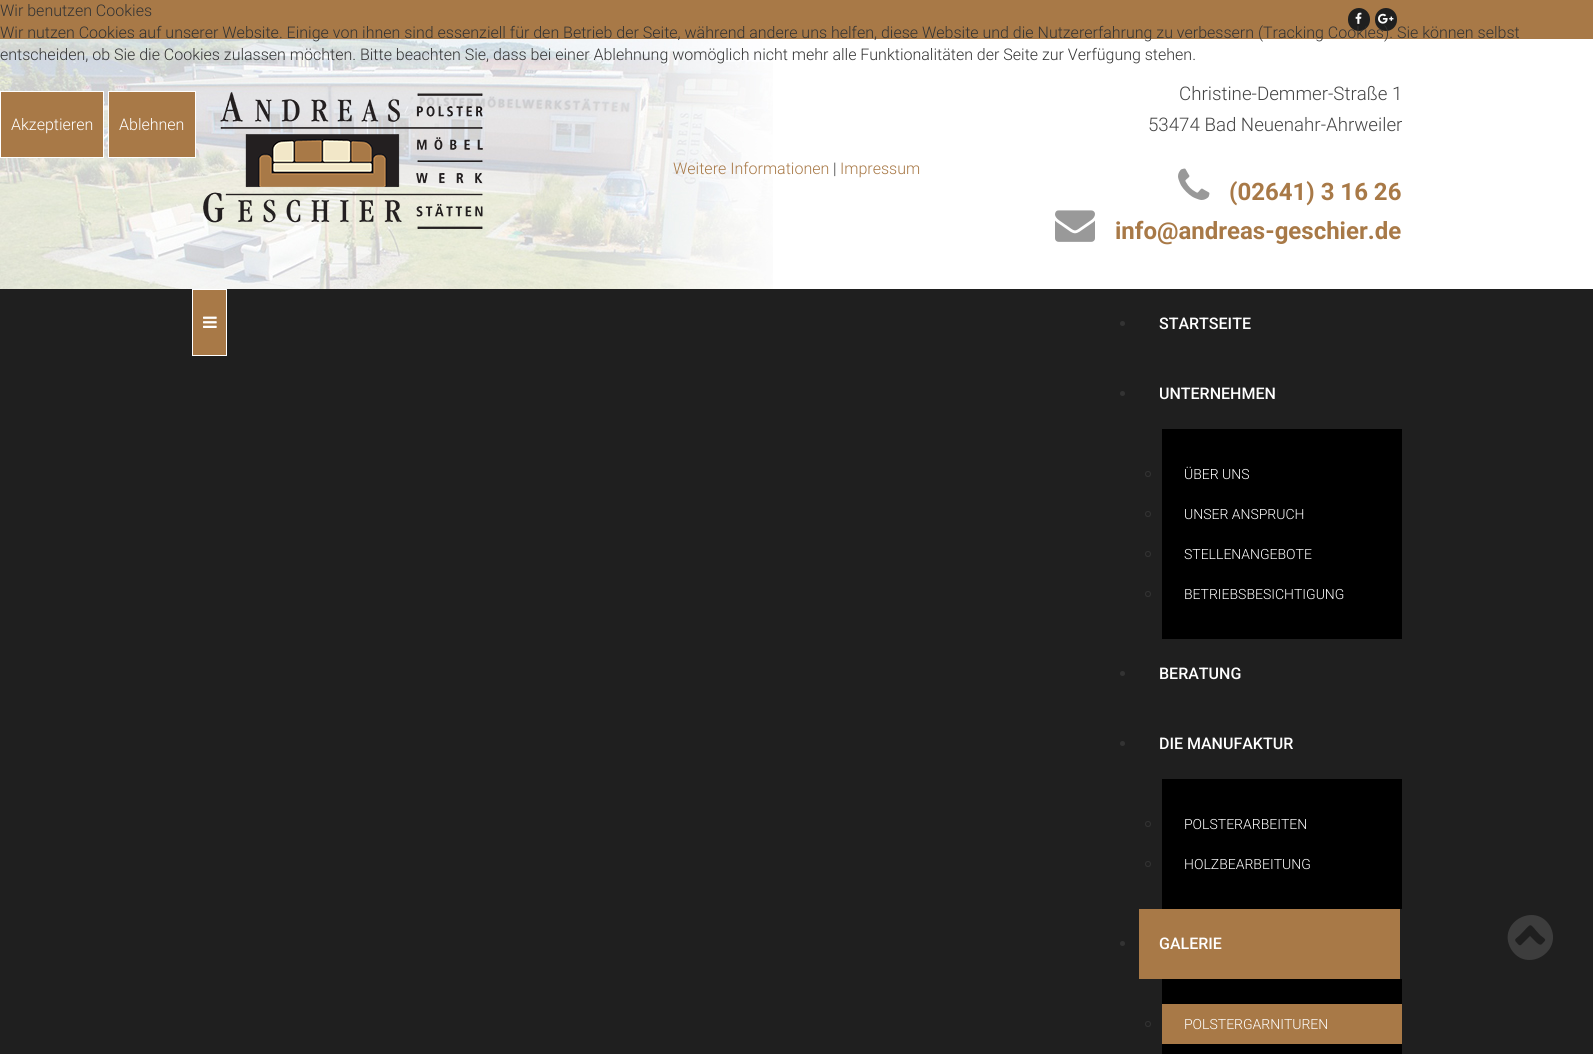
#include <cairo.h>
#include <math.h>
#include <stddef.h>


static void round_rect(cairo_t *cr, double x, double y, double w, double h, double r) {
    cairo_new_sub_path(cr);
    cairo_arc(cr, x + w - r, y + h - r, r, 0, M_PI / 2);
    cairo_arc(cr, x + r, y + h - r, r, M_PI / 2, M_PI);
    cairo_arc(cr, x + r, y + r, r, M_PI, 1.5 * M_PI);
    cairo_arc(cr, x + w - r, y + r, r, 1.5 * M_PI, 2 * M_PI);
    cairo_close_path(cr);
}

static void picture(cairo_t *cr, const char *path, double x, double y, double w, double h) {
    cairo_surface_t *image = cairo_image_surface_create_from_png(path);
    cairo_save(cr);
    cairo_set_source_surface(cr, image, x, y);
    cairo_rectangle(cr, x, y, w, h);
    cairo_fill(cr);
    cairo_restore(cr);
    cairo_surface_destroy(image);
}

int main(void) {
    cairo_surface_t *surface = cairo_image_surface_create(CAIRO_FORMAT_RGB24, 1593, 1054);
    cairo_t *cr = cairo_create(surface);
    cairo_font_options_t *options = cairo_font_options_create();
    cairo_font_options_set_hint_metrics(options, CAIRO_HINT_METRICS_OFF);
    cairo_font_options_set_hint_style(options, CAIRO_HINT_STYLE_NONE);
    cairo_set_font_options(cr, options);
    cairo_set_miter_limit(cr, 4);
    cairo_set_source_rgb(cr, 1, 1, 1);
    cairo_paint(cr);
    cairo_set_source_rgb(cr, 0.659, 0.475, 0.278);
    cairo_rectangle(cr, 0, 0, 1593, 39);
    cairo_fill(cr);
    cairo_select_font_face(cr, "Roboto Light", CAIRO_FONT_SLANT_NORMAL, CAIRO_FONT_WEIGHT_NORMAL);
    cairo_set_font_size(cr, 16);
    cairo_set_source_rgb(cr, 0.2, 0.2, 0.2);
    cairo_move_to(cr, 0, 16);
    cairo_show_text(cr, "Wir benutzen Cookies");
    cairo_set_source_rgb(cr, 0.122, 0.122, 0.122);
    round_rect(cr, 1348, 8, 22, 23, 11);
    cairo_fill(cr);
    round_rect(cr, 1375, 8, 22, 23, 11);
    cairo_fill(cr);
    picture(cr, "img3.png", 0, 39, 773, 250);
    cairo_set_source_rgb(cr, 0.2, 0.2, 0.2);
    cairo_move_to(cr, 0, 38);
    cairo_show_text(cr, "Wir nutzen Cookies auf unserer Website. Einige von ihnen sind essenziell für den Betrieb der Seite, während andere uns helfen, diese Website und die Nutzererfahrung zu verbessern (Tracking Cookies). Sie können selbst");
    cairo_move_to(cr, 0, 60);
    cairo_show_text(cr, "entscheiden, ob Sie die Cookies zulassen möchten. Bitte beachten Sie, dass bei einer Ablehnung womöglich nicht mehr alle Funktionalitäten der Seite zur Verfügung stehen.");
    cairo_set_source_rgb(cr, 0.659, 0.475, 0.278);
    cairo_rectangle(cr, 0.5, 91.5, 103, 66);
    cairo_fill_preserve(cr);
    cairo_set_source_rgb(cr, 1, 1, 1);
    cairo_set_line_width(cr, 1);
    cairo_stroke(cr);
    cairo_move_to(cr, 11, 130);
    cairo_show_text(cr, "Akzeptieren");
    cairo_set_source_rgb(cr, 0.659, 0.475, 0.278);
    cairo_rectangle(cr, 108.5, 91.5, 87, 66);
    cairo_fill_preserve(cr);
    cairo_set_source_rgb(cr, 1, 1, 1);
    cairo_stroke(cr);
    cairo_move_to(cr, 119, 130);
    cairo_show_text(cr, "Ablehnen");
    cairo_set_source_rgb(cr, 0.659, 0.475, 0.278);
    cairo_move_to(cr, 673, 174);
    cairo_show_text(cr, "Weitere Informationen");
    cairo_set_source_rgb(cr, 0.2, 0.2, 0.2);
    cairo_move_to(cr, 833, 174);
    cairo_show_text(cr, "|");
    cairo_set_source_rgb(cr, 0.659, 0.475, 0.278);
    cairo_move_to(cr, 840, 174);
    cairo_show_text(cr, "Impressum");
    picture(cr, "img1.png", 1355, 12, 7, 12);
    picture(cr, "img2.png", 1378, 13, 16, 11);
    picture(cr, "img4.png", 203, 92, 280, 137);
    cairo_set_font_size(cr, 18.7);
    cairo_set_source_rgb(cr, 0.267, 0.267, 0.267);
    cairo_move_to(cr, 1179, 100);
    cairo_show_text(cr, "Christine-Demmer-Straße 1");
    cairo_move_to(cr, 1148, 131);
    cairo_show_text(cr, "53474 Bad Neuenahr-Ahrweiler");
    picture(cr, "img5.png", 1178, 168, 32, 32);
    cairo_select_font_face(cr, "Roboto", CAIRO_FONT_SLANT_NORMAL, CAIRO_FONT_WEIGHT_BOLD);
    cairo_set_font_size(cr, 24);
    cairo_set_source_rgb(cr, 0.659, 0.475, 0.278);
    cairo_move_to(cr, 1229, 200);
    cairo_show_text(cr, "(02641) 3 16 26");
    picture(cr, "img6.png", 1055, 210, 40, 32);
    cairo_move_to(cr, 1115, 239);
    cairo_show_text(cr, "info@andreas-geschier.de");
    cairo_set_source_rgb(cr, 0.122, 0.122, 0.122);
    cairo_rectangle(cr, 0, 289, 1593, 765);
    cairo_fill(cr);
    cairo_set_source_rgb(cr, 0.659, 0.475, 0.278);
    cairo_rectangle(cr, 192.5, 289.5, 34, 66);
    cairo_fill_preserve(cr);
    cairo_set_source_rgb(cr, 1, 1, 1);
    cairo_stroke(cr);
    picture(cr, "img7.png", 203, 316, 14, 12);
    cairo_set_source_rgb(cr, 0.2, 0.2, 0.2);
    cairo_arc(cr, 1122.5, 323.5, 2.5, 0, 2 * M_PI);
    cairo_fill(cr);
    cairo_select_font_face(cr, "Roboto Medium", CAIRO_FONT_SLANT_NORMAL, CAIRO_FONT_WEIGHT_NORMAL);
    cairo_set_font_size(cr, 16);
    cairo_set_source_rgb(cr, 1, 1, 1);
    cairo_move_to(cr, 1159, 329);
    cairo_show_text(cr, "STARTSEITE");
    cairo_set_source_rgb(cr, 0.2, 0.2, 0.2);
    cairo_new_path(cr);
    cairo_arc(cr, 1122.5, 393.5, 2.5, 0, 2 * M_PI);
    cairo_fill(cr);
    cairo_set_source_rgb(cr, 1, 1, 1);
    cairo_move_to(cr, 1159, 399);
    cairo_show_text(cr, "UNTERNEHMEN");
    cairo_set_source_rgb(cr, 0, 0, 0);
    cairo_rectangle(cr, 1162, 429, 240, 210);
    cairo_fill(cr);
    cairo_arc(cr, 1148, 474, 2.5, 0, 2 * M_PI);
    cairo_set_source_rgb(cr, 0.2, 0.2, 0.2);
    cairo_stroke(cr);
    cairo_select_font_face(cr, "Roboto Light", CAIRO_FONT_SLANT_NORMAL, CAIRO_FONT_WEIGHT_NORMAL);
    cairo_set_font_size(cr, 14);
    cairo_set_source_rgb(cr, 1, 1, 1);
    cairo_move_to(cr, 1184, 479);
    cairo_show_text(cr, "ÜBER UNS");
    cairo_new_path(cr);
    cairo_arc(cr, 1148, 514, 2.5, 0, 2 * M_PI);
    cairo_set_source_rgb(cr, 0.2, 0.2, 0.2);
    cairo_stroke(cr);
    cairo_set_source_rgb(cr, 1, 1, 1);
    cairo_move_to(cr, 1184, 519);
    cairo_show_text(cr, "UNSER ANSPRUCH");
    cairo_new_path(cr);
    cairo_arc(cr, 1148, 554, 2.5, 0, 2 * M_PI);
    cairo_set_source_rgb(cr, 0.2, 0.2, 0.2);
    cairo_stroke(cr);
    cairo_set_source_rgb(cr, 1, 1, 1);
    cairo_move_to(cr, 1184, 559);
    cairo_show_text(cr, "STELLENANGEBOTE");
    cairo_new_path(cr);
    cairo_arc(cr, 1148, 594, 2.5, 0, 2 * M_PI);
    cairo_set_source_rgb(cr, 0.2, 0.2, 0.2);
    cairo_stroke(cr);
    cairo_set_source_rgb(cr, 1, 1, 1);
    cairo_move_to(cr, 1184, 599);
    cairo_show_text(cr, "BETRIEBSBESICHTIGUNG");
    cairo_set_source_rgb(cr, 0.2, 0.2, 0.2);
    cairo_new_path(cr);
    cairo_arc(cr, 1122.5, 673.5, 2.5, 0, 2 * M_PI);
    cairo_fill(cr);
    cairo_select_font_face(cr, "Roboto Medium", CAIRO_FONT_SLANT_NORMAL, CAIRO_FONT_WEIGHT_NORMAL);
    cairo_set_font_size(cr, 16);
    cairo_set_source_rgb(cr, 1, 1, 1);
    cairo_move_to(cr, 1159, 679);
    cairo_show_text(cr, "BERATUNG");
    cairo_set_source_rgb(cr, 0.2, 0.2, 0.2);
    cairo_new_path(cr);
    cairo_arc(cr, 1122.5, 743.5, 2.5, 0, 2 * M_PI);
    cairo_fill(cr);
    cairo_set_source_rgb(cr, 1, 1, 1);
    cairo_move_to(cr, 1159, 749);
    cairo_show_text(cr, "DIE MANUFAKTUR");
    cairo_set_source_rgb(cr, 0, 0, 0);
    cairo_rectangle(cr, 1162, 779, 240, 130);
    cairo_fill(cr);
    cairo_arc(cr, 1148, 824, 2.5, 0, 2 * M_PI);
    cairo_set_source_rgb(cr, 0.2, 0.2, 0.2);
    cairo_stroke(cr);
    cairo_select_font_face(cr, "Roboto Light", CAIRO_FONT_SLANT_NORMAL, CAIRO_FONT_WEIGHT_NORMAL);
    cairo_set_font_size(cr, 14);
    cairo_set_source_rgb(cr, 1, 1, 1);
    cairo_move_to(cr, 1184, 829);
    cairo_show_text(cr, "POLSTERARBEITEN");
    cairo_new_path(cr);
    cairo_arc(cr, 1148, 864, 2.5, 0, 2 * M_PI);
    cairo_set_source_rgb(cr, 0.2, 0.2, 0.2);
    cairo_stroke(cr);
    cairo_set_source_rgb(cr, 1, 1, 1);
    cairo_move_to(cr, 1184, 869);
    cairo_show_text(cr, "HOLZBEARBEITUNG");
    cairo_set_source_rgb(cr, 0.2, 0.2, 0.2);
    cairo_new_path(cr);
    cairo_arc(cr, 1122.5, 943.5, 2.5, 0, 2 * M_PI);
    cairo_fill(cr);
    cairo_set_source_rgb(cr, 0.659, 0.475, 0.278);
    cairo_rectangle(cr, 1139, 909, 261, 70);
    cairo_fill(cr);
    cairo_select_font_face(cr, "Roboto Medium", CAIRO_FONT_SLANT_NORMAL, CAIRO_FONT_WEIGHT_NORMAL);
    cairo_set_font_size(cr, 16);
    cairo_set_source_rgb(cr, 1, 1, 1);
    cairo_move_to(cr, 1159, 949);
    cairo_show_text(cr, "GALERIE");
    cairo_set_source_rgb(cr, 0, 0, 0);
    cairo_rectangle(cr, 1162, 979, 240, 75);
    cairo_fill(cr);
    cairo_arc(cr, 1148, 1024, 2.5, 0, 2 * M_PI);
    cairo_set_source_rgb(cr, 0.2, 0.2, 0.2);
    cairo_stroke(cr);
    cairo_set_source_rgb(cr, 0.659, 0.475, 0.278);
    cairo_rectangle(cr, 1162, 1004, 240, 40);
    cairo_fill(cr);
    cairo_select_font_face(cr, "Roboto Light", CAIRO_FONT_SLANT_NORMAL, CAIRO_FONT_WEIGHT_NORMAL);
    cairo_set_font_size(cr, 14);
    cairo_set_source_rgb(cr, 1, 1, 1);
    cairo_move_to(cr, 1184, 1029);
    cairo_show_text(cr, "POLSTERGARNITUREN");
    cairo_set_source_rgb(cr, 0.239, 0.239, 0.239);
    cairo_new_path(cr);
    cairo_move_to(cr, 1542, 944);
    cairo_curve_to(cr, 1547, 939, 1546, 940, 1540, 935);
    cairo_curve_to(cr, 1528, 922, 1533, 922, 1520, 935);
    cairo_curve_to(cr, 1516, 939, 1513, 939, 1517, 943);
    cairo_curve_to(cr, 1518, 944, 1519, 946, 1521, 945);
    cairo_line_to(cr, 1530, 936);
    cairo_line_to(cr, 1536, 942);
    cairo_curve_to(cr, 1537, 943, 1540, 946, 1542, 944);
    cairo_close_path(cr);
    cairo_move_to(cr, 1550, 926);
    cairo_curve_to(cr, 1564, 952, 1526, 974, 1511, 949);
    cairo_curve_to(cr, 1496, 923, 1535, 901, 1550, 926);
    cairo_close_path(cr);
    cairo_fill(cr);
    cairo_surface_write_to_png(surface, "page.png");
    cairo_font_options_destroy(options);
    cairo_destroy(cr);
    cairo_surface_destroy(surface);
    return 0;
}
